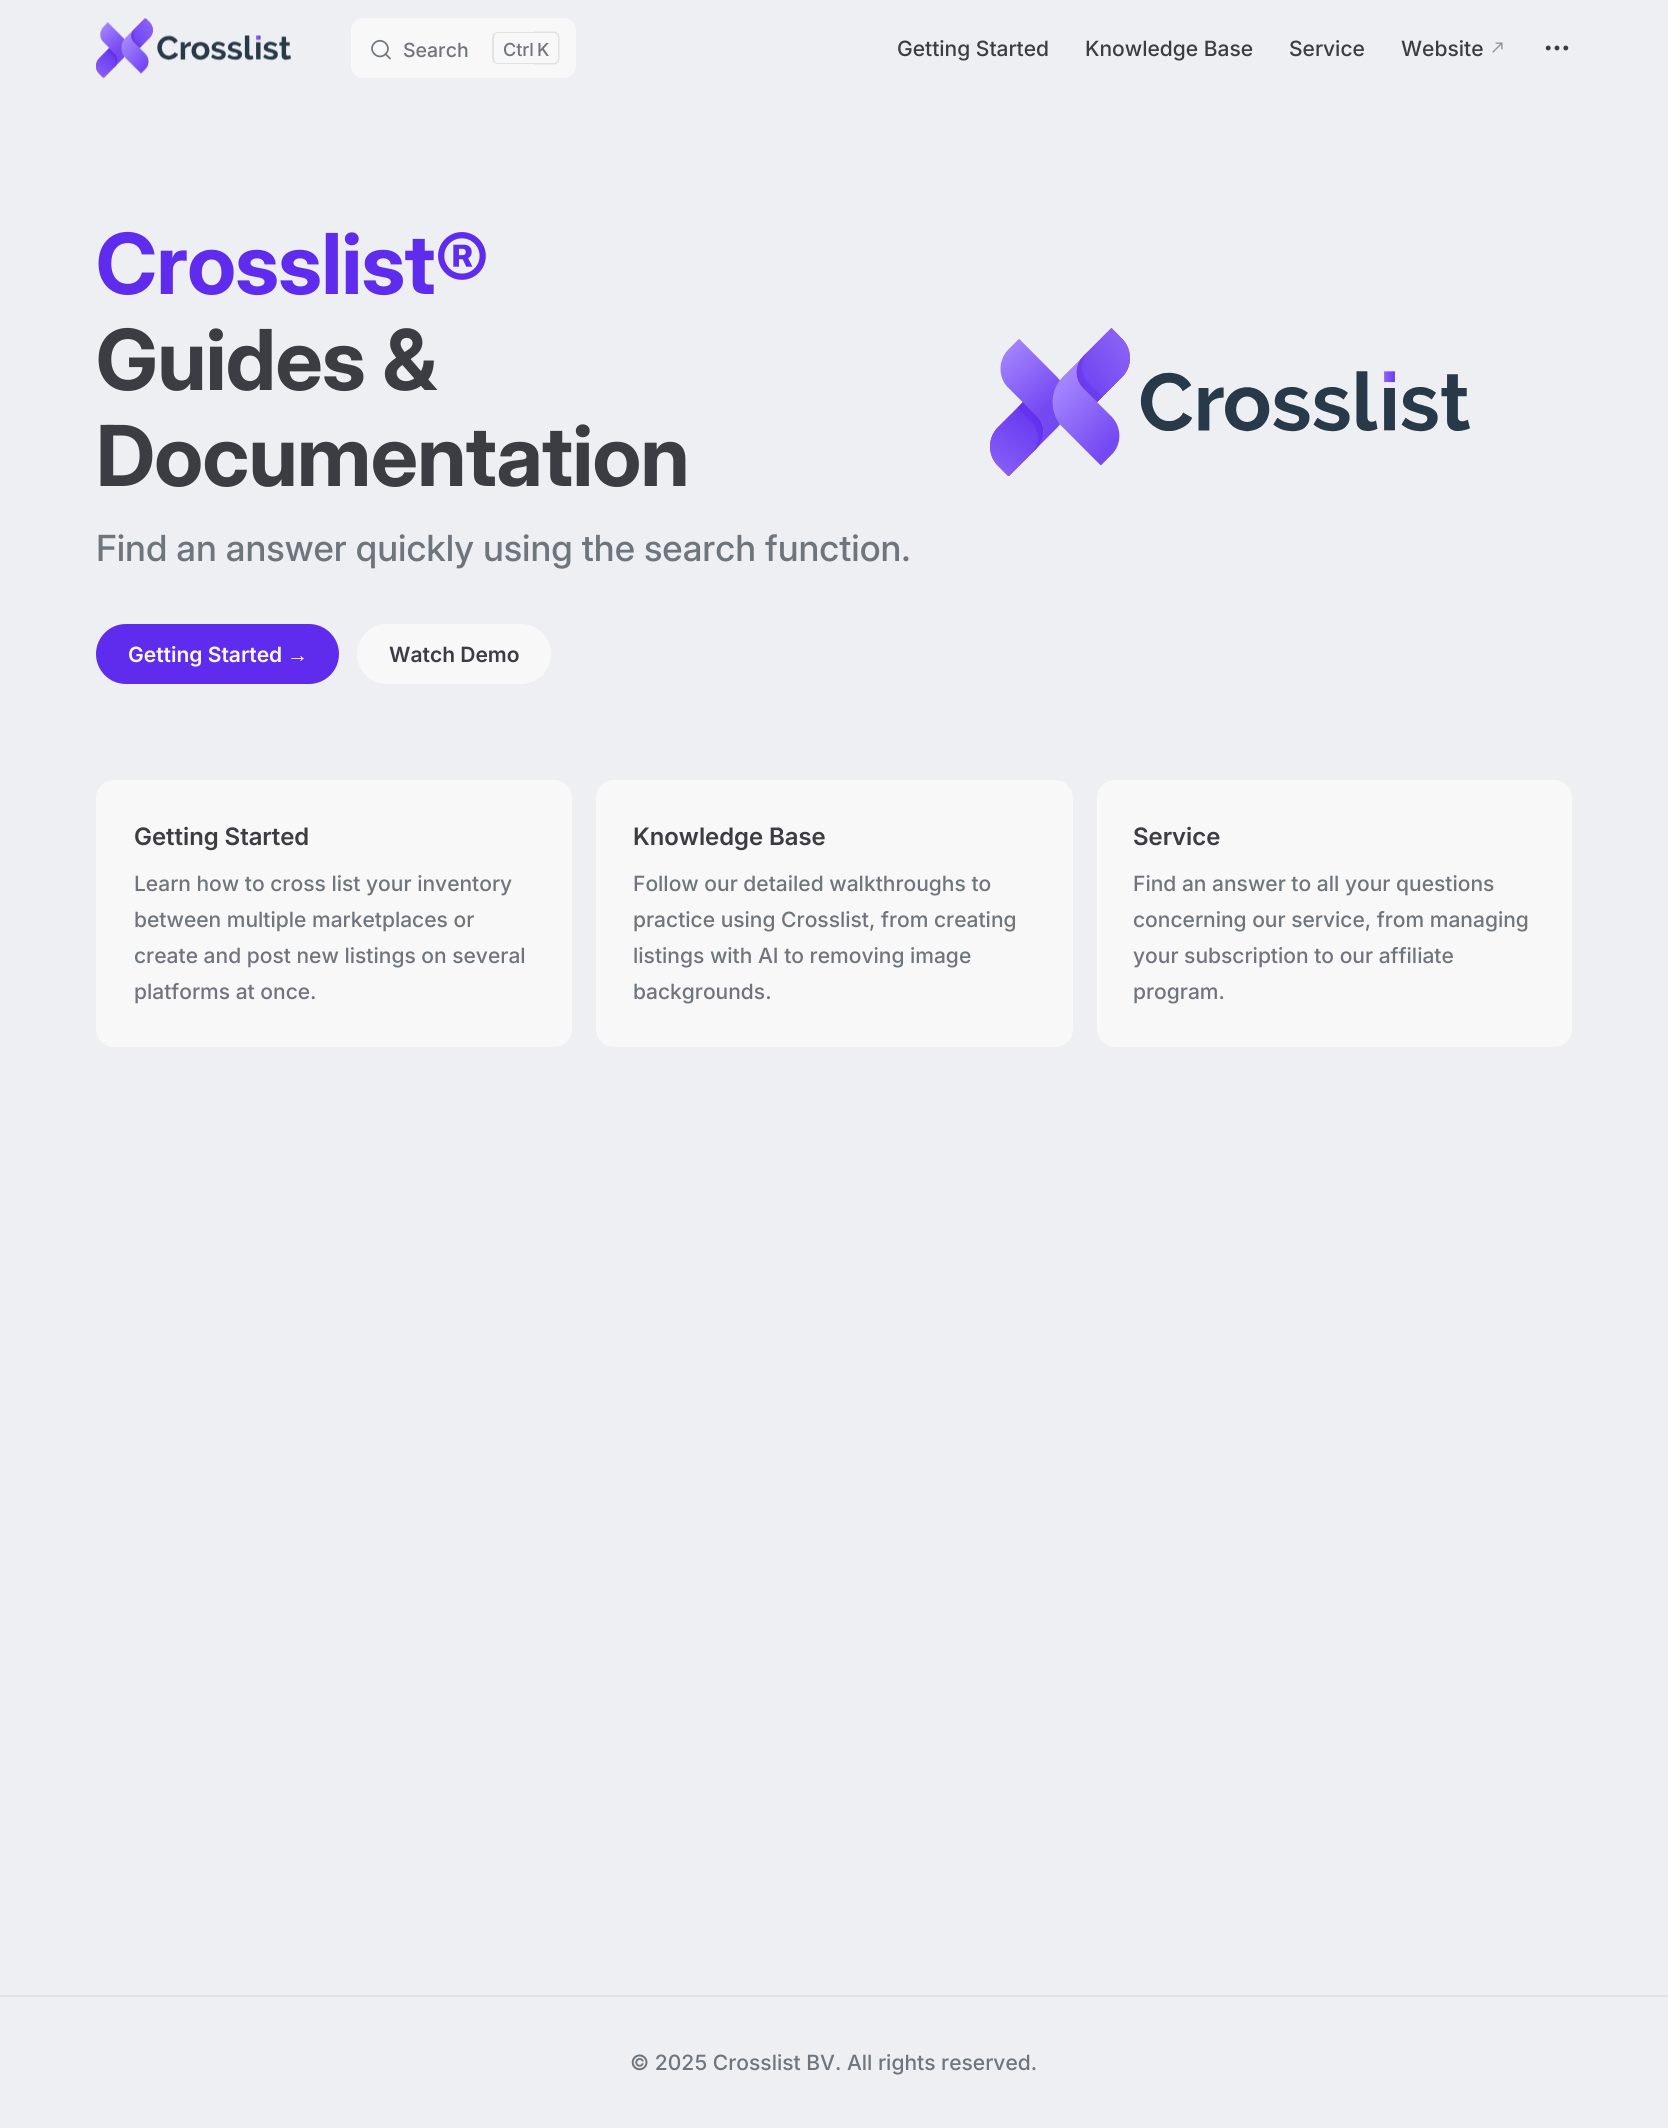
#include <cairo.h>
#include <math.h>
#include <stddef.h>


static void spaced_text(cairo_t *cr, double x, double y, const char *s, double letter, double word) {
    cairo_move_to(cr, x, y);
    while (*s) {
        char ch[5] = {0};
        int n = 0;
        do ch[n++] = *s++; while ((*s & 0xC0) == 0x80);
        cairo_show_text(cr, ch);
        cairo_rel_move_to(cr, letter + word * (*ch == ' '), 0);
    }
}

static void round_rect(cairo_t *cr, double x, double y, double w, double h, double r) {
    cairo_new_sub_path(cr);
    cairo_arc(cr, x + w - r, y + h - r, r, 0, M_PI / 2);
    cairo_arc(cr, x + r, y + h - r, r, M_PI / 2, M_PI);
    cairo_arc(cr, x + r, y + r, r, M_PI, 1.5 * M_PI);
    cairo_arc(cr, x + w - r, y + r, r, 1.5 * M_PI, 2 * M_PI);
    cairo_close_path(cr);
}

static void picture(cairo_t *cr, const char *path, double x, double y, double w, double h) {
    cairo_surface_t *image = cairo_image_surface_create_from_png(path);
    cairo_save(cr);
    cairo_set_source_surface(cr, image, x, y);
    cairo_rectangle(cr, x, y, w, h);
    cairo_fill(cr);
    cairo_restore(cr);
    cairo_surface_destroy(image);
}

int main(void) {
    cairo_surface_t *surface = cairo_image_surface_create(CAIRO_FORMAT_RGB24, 1668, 2128);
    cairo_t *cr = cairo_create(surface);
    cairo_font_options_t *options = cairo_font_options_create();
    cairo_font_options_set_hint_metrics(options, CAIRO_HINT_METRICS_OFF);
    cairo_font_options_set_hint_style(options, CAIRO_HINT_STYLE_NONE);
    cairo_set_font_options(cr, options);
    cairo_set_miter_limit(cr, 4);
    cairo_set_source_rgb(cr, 0.933, 0.937, 0.949);
    cairo_paint(cr);
    picture(cr, "img1.png", 96, 18, 195, 61);
    cairo_set_source_rgb(cr, 0.969, 0.969, 0.973);
    round_rect(cr, 351, 18, 225, 60, 12);
    cairo_fill(cr);
    cairo_new_path(cr);
    cairo_move_to(cr, 385.5, 54);
    cairo_line_to(cr, 390, 58.5);
    cairo_line_to(cr, 385.5, 54);
    cairo_curve_to(cr, 378, 61.5, 367, 50, 374.5, 43);
    cairo_curve_to(cr, 382, 36, 393, 47, 385.5, 54);
    cairo_close_path(cr);
    cairo_set_source_rgb(cr, 0.431, 0.459, 0.486);
    cairo_set_line_width(cr, 1.7);
    cairo_set_line_cap(cr, CAIRO_LINE_CAP_ROUND);
    cairo_set_line_join(cr, CAIRO_LINE_JOIN_ROUND);
    cairo_stroke(cr);
    cairo_select_font_face(cr, "Inter Medium", CAIRO_FONT_SLANT_NORMAL, CAIRO_FONT_WEIGHT_NORMAL);
    cairo_set_font_size(cr, 19.5);
    cairo_move_to(cr, 403, 57);
    cairo_show_text(cr, "Search");
    cairo_set_source_rgb(cr, 0.886, 0.886, 0.89);
    cairo_set_fill_rule(cr, CAIRO_FILL_RULE_EVEN_ODD);
    cairo_new_path(cr);
    cairo_move_to(cr, 498, 32);
    cairo_line_to(cr, 534, 32);
    cairo_line_to(cr, 534, 64);
    cairo_line_to(cr, 498, 64);
    cairo_curve_to(cr, 495, 64, 492, 62, 492, 58);
    cairo_line_to(cr, 492, 38);
    cairo_curve_to(cr, 492, 34, 495, 32, 498, 32);
    cairo_close_path(cr);
    cairo_move_to(cr, 498, 33);
    cairo_line_to(cr, 534, 33);
    cairo_line_to(cr, 534, 63);
    cairo_line_to(cr, 498, 63);
    cairo_curve_to(cr, 496, 63, 494, 61, 494, 58);
    cairo_line_to(cr, 494, 38);
    cairo_curve_to(cr, 494, 35, 496, 33, 498, 33);
    cairo_close_path(cr);
    cairo_fill(cr);
    cairo_set_font_size(cr, 18);
    cairo_set_source_rgb(cr, 0.431, 0.459, 0.486);
    cairo_move_to(cr, 503, 56);
    cairo_show_text(cr, "Ctrl");
    cairo_set_source_rgb(cr, 0.886, 0.886, 0.89);
    cairo_new_path(cr);
    cairo_move_to(cr, 534, 31.5);
    cairo_line_to(cr, 553.5, 31.5);
    cairo_curve_to(cr, 557, 31.5, 559.5, 34, 559.5, 37.5);
    cairo_line_to(cr, 559.5, 58.5);
    cairo_curve_to(cr, 559.5, 62, 557, 64.5, 553.5, 64.5);
    cairo_line_to(cr, 534, 64.5);
    cairo_close_path(cr);
    cairo_move_to(cr, 534, 33);
    cairo_line_to(cr, 553.5, 33);
    cairo_curve_to(cr, 556, 33, 558, 35, 558, 37.5);
    cairo_line_to(cr, 558, 58.5);
    cairo_curve_to(cr, 558, 61, 556, 63, 553.5, 63);
    cairo_line_to(cr, 534, 63);
    cairo_close_path(cr);
    cairo_fill(cr);
    cairo_set_source_rgb(cr, 0.431, 0.459, 0.486);
    cairo_move_to(cr, 537, 56);
    cairo_show_text(cr, "K");
    cairo_set_font_size(cr, 21);
    cairo_set_source_rgb(cr, 0.235, 0.235, 0.263);
    cairo_move_to(cr, 897, 56);
    cairo_show_text(cr, "Getting Started");
    cairo_move_to(cr, 1085, 56);
    cairo_show_text(cr, "Knowledge Base");
    cairo_move_to(cr, 1289, 56);
    cairo_show_text(cr, "Service");
    cairo_move_to(cr, 1401, 56);
    cairo_show_text(cr, "Website");
    picture(cr, "img2.png", 1492, 42, 11, 11);
    cairo_arc(cr, 1557, 48, 1.2, 0, 2 * M_PI);
    cairo_set_line_width(cr, 2.5);
    cairo_set_line_cap(cr, CAIRO_LINE_CAP_BUTT);
    cairo_set_line_join(cr, CAIRO_LINE_JOIN_MITER);
    cairo_stroke(cr);
    cairo_arc(cr, 1565.8, 48, 1.2, 0, 2 * M_PI);
    cairo_stroke(cr);
    cairo_arc(cr, 1548.2, 48, 1.2, 0, 2 * M_PI);
    cairo_stroke(cr);
    cairo_select_font_face(cr, "Inter", CAIRO_FONT_SLANT_NORMAL, CAIRO_FONT_WEIGHT_BOLD);
    cairo_set_font_size(cr, 84);
    cairo_set_source_rgb(cr, 0.373, 0.173, 0.929);
    spaced_text(cr, 96, 294, "Crosslist®", -0.6, 0);
    cairo_set_source_rgb(cr, 0.235, 0.235, 0.263);
    spaced_text(cr, 96, 390, "Guides &", -0.6, 0);
    spaced_text(cr, 96, 486, "Documentation", -0.6, 0);
    cairo_select_font_face(cr, "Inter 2 Medium", CAIRO_FONT_SLANT_NORMAL, CAIRO_FONT_WEIGHT_NORMAL);
    cairo_set_font_size(cr, 36);
    cairo_set_source_rgb(cr, 0.431, 0.459, 0.486);
    cairo_move_to(cr, 96, 561);
    cairo_show_text(cr, "Find an answer quickly using the search function.");
    cairo_set_source_rgb(cr, 0.373, 0.173, 0.929);
    round_rect(cr, 96, 624, 243, 60, 30);
    cairo_fill(cr);
    cairo_select_font_face(cr, "Inter 2 SemiBold", CAIRO_FONT_SLANT_NORMAL, CAIRO_FONT_WEIGHT_NORMAL);
    cairo_set_font_size(cr, 21);
    cairo_set_source_rgb(cr, 0.969, 0.969, 0.973);
    cairo_move_to(cr, 128, 662);
    cairo_show_text(cr, "Getting Started");
    cairo_select_font_face(cr, "Liberation Sans", CAIRO_FONT_SLANT_NORMAL, CAIRO_FONT_WEIGHT_BOLD);
    cairo_move_to(cr, 287, 662);
    cairo_show_text(cr, "→");
    round_rect(cr, 357, 624, 194, 60, 30);
    cairo_fill(cr);
    cairo_select_font_face(cr, "Inter 2 SemiBold", CAIRO_FONT_SLANT_NORMAL, CAIRO_FONT_WEIGHT_NORMAL);
    cairo_set_source_rgb(cr, 0.235, 0.235, 0.263);
    cairo_move_to(cr, 389, 662);
    cairo_show_text(cr, "Watch Demo");
    picture(cr, "img3.png", 990, 328, 480, 148);
    cairo_set_source_rgb(cr, 0.969, 0.969, 0.973);
    round_rect(cr, 96, 780, 476, 267, 18);
    cairo_fill(cr);
    cairo_select_font_face(cr, "Inter SemiBold", CAIRO_FONT_SLANT_NORMAL, CAIRO_FONT_WEIGHT_NORMAL);
    cairo_set_font_size(cr, 24);
    cairo_set_source_rgb(cr, 0.235, 0.235, 0.263);
    cairo_move_to(cr, 134, 845);
    cairo_show_text(cr, "Getting Started");
    cairo_select_font_face(cr, "Inter Medium", CAIRO_FONT_SLANT_NORMAL, CAIRO_FONT_WEIGHT_NORMAL);
    cairo_set_font_size(cr, 21);
    cairo_set_source_rgb(cr, 0.431, 0.459, 0.486);
    cairo_move_to(cr, 134, 891);
    cairo_show_text(cr, "Learn how to cross list your inventory");
    cairo_move_to(cr, 134, 927);
    cairo_show_text(cr, "between multiple marketplaces or");
    cairo_move_to(cr, 134, 963);
    cairo_show_text(cr, "create and post new listings on several");
    cairo_move_to(cr, 134, 999);
    cairo_show_text(cr, "platforms at once.");
    cairo_set_source_rgb(cr, 0.969, 0.969, 0.973);
    round_rect(cr, 596, 780, 477, 267, 18);
    cairo_fill(cr);
    cairo_select_font_face(cr, "Inter SemiBold", CAIRO_FONT_SLANT_NORMAL, CAIRO_FONT_WEIGHT_NORMAL);
    cairo_set_font_size(cr, 24);
    cairo_set_source_rgb(cr, 0.235, 0.235, 0.263);
    cairo_move_to(cr, 633, 845);
    cairo_show_text(cr, "Knowledge Base");
    cairo_select_font_face(cr, "Inter Medium", CAIRO_FONT_SLANT_NORMAL, CAIRO_FONT_WEIGHT_NORMAL);
    cairo_set_font_size(cr, 21);
    cairo_set_source_rgb(cr, 0.431, 0.459, 0.486);
    cairo_move_to(cr, 633, 891);
    cairo_show_text(cr, "Follow our detailed walkthroughs to");
    cairo_move_to(cr, 633, 927);
    cairo_show_text(cr, "practice using Crosslist, from creating");
    cairo_move_to(cr, 633, 963);
    cairo_show_text(cr, "listings with AI to removing image");
    cairo_move_to(cr, 633, 999);
    cairo_show_text(cr, "backgrounds.");
    cairo_set_source_rgb(cr, 0.969, 0.969, 0.973);
    round_rect(cr, 1097, 780, 475, 267, 18);
    cairo_fill(cr);
    cairo_select_font_face(cr, "Inter SemiBold", CAIRO_FONT_SLANT_NORMAL, CAIRO_FONT_WEIGHT_NORMAL);
    cairo_set_font_size(cr, 24);
    cairo_set_source_rgb(cr, 0.235, 0.235, 0.263);
    cairo_move_to(cr, 1133, 845);
    cairo_show_text(cr, "Service");
    cairo_select_font_face(cr, "Inter Medium", CAIRO_FONT_SLANT_NORMAL, CAIRO_FONT_WEIGHT_NORMAL);
    cairo_set_font_size(cr, 21);
    cairo_set_source_rgb(cr, 0.431, 0.459, 0.486);
    cairo_move_to(cr, 1133, 891);
    cairo_show_text(cr, "Find an answer to all your questions");
    cairo_move_to(cr, 1133, 927);
    cairo_show_text(cr, "concerning our service, from managing");
    cairo_move_to(cr, 1133, 963);
    cairo_show_text(cr, "your subscription to our affiliate");
    cairo_move_to(cr, 1133, 999);
    cairo_show_text(cr, "program.");
    cairo_set_source_rgb(cr, 0.886, 0.886, 0.89);
    cairo_rectangle(cr, 0, 1995, 1668, 2);
    cairo_fill(cr);
    cairo_set_source_rgb(cr, 0.431, 0.459, 0.486);
    cairo_move_to(cr, 630, 2070);
    cairo_show_text(cr, "© 2025 Crosslist BV. All rights reserved.");
    cairo_surface_write_to_png(surface, "page.png");
    cairo_font_options_destroy(options);
    cairo_destroy(cr);
    cairo_surface_destroy(surface);
    return 0;
}
